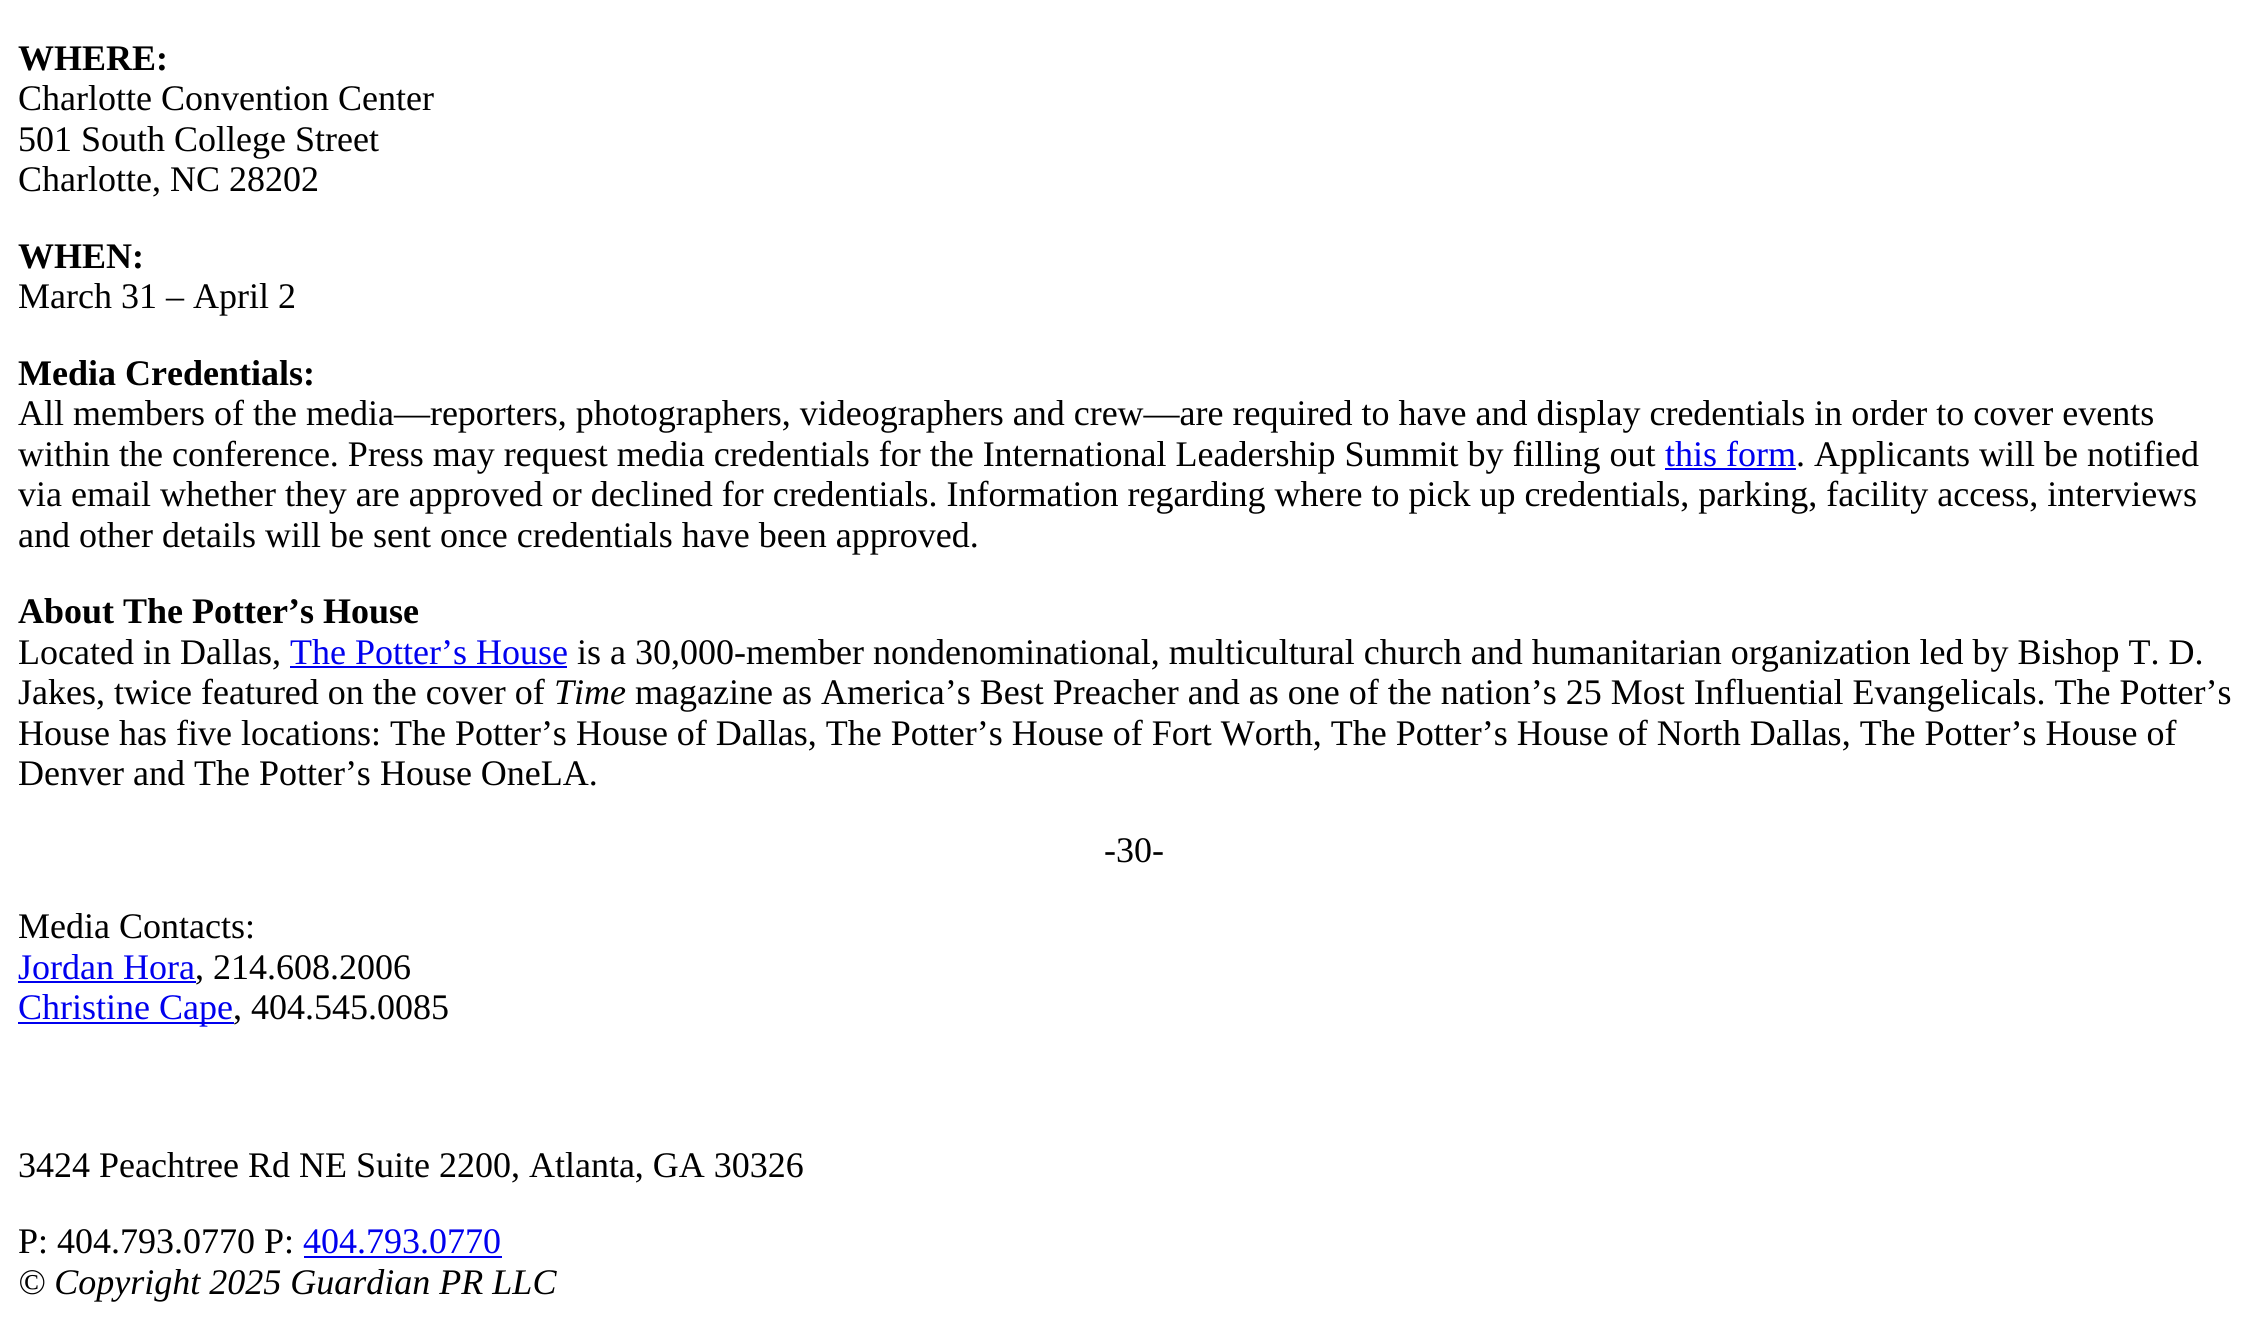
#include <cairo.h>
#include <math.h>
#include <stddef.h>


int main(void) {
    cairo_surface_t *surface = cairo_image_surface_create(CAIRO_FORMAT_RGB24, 2268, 1319);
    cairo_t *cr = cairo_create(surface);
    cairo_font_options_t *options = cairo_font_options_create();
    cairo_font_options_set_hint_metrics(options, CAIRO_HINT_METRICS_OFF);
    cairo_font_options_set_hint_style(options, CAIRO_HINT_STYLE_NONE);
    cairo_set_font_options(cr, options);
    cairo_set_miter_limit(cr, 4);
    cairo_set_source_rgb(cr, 1, 1, 1);
    cairo_paint(cr);
    cairo_select_font_face(cr, "Liberation Serif", CAIRO_FONT_SLANT_NORMAL, CAIRO_FONT_WEIGHT_BOLD);
    cairo_set_font_size(cr, 36);
    cairo_set_source_rgb(cr, 0, 0, 0);
    cairo_move_to(cr, 18, 70);
    cairo_show_text(cr, "WHERE:");
    cairo_select_font_face(cr, "Liberation Serif", CAIRO_FONT_SLANT_NORMAL, CAIRO_FONT_WEIGHT_NORMAL);
    cairo_move_to(cr, 18, 110);
    cairo_show_text(cr, "Charlotte Convention Center");
    cairo_move_to(cr, 18, 151);
    cairo_show_text(cr, "501 South College Street");
    cairo_move_to(cr, 18, 191);
    cairo_show_text(cr, "Charlotte, NC 28202");
    cairo_select_font_face(cr, "Liberation Serif", CAIRO_FONT_SLANT_NORMAL, CAIRO_FONT_WEIGHT_BOLD);
    cairo_move_to(cr, 18, 268);
    cairo_show_text(cr, "WHEN:");
    cairo_select_font_face(cr, "Liberation Serif", CAIRO_FONT_SLANT_NORMAL, CAIRO_FONT_WEIGHT_NORMAL);
    cairo_move_to(cr, 18, 308);
    cairo_show_text(cr, "March 31 – April 2");
    cairo_select_font_face(cr, "Liberation Serif", CAIRO_FONT_SLANT_NORMAL, CAIRO_FONT_WEIGHT_BOLD);
    cairo_move_to(cr, 18, 385);
    cairo_show_text(cr, "Media Credentials:");
    cairo_select_font_face(cr, "Liberation Serif", CAIRO_FONT_SLANT_NORMAL, CAIRO_FONT_WEIGHT_NORMAL);
    cairo_move_to(cr, 18, 425);
    cairo_show_text(cr, "All members of the media—reporters, photographers, videographers and crew—are required to have and display credentials in order to cover events");
    cairo_move_to(cr, 18, 466);
    cairo_show_text(cr, "within the conference. Press may request media credentials for the International Leadership Summit by filling out");
    cairo_set_source_rgb(cr, 0, 0, 0.933);
    cairo_move_to(cr, 1665, 466);
    cairo_show_text(cr, "this form");
    cairo_rectangle(cr, 1665, 468, 131, 2);
    cairo_fill(cr);
    cairo_set_source_rgb(cr, 0, 0, 0);
    cairo_move_to(cr, 1796, 466);
    cairo_show_text(cr, ". Applicants will be notified");
    cairo_move_to(cr, 18, 506);
    cairo_show_text(cr, "via email whether they are approved or declined for credentials. Information regarding where to pick up credentials, parking, facility access, interviews");
    cairo_move_to(cr, 18, 547);
    cairo_show_text(cr, "and other details will be sent once credentials have been approved.");
    cairo_select_font_face(cr, "Liberation Serif", CAIRO_FONT_SLANT_NORMAL, CAIRO_FONT_WEIGHT_BOLD);
    cairo_move_to(cr, 18, 623);
    cairo_show_text(cr, "About The Potter’s House");
    cairo_select_font_face(cr, "Liberation Serif", CAIRO_FONT_SLANT_NORMAL, CAIRO_FONT_WEIGHT_NORMAL);
    cairo_move_to(cr, 18, 664);
    cairo_show_text(cr, "Located in Dallas,");
    cairo_set_source_rgb(cr, 0, 0, 0.933);
    cairo_move_to(cr, 290, 664);
    cairo_show_text(cr, "The Potter’s House");
    cairo_rectangle(cr, 290, 666, 277, 2);
    cairo_fill(cr);
    cairo_set_source_rgb(cr, 0, 0, 0);
    cairo_move_to(cr, 577, 664);
    cairo_show_text(cr, "is a 30,000-member nondenominational, multicultural church and humanitarian organization led by Bishop T. D.");
    cairo_move_to(cr, 18, 704);
    cairo_show_text(cr, "Jakes, twice featured on the cover of");
    cairo_select_font_face(cr, "Liberation Serif", CAIRO_FONT_SLANT_ITALIC, CAIRO_FONT_WEIGHT_NORMAL);
    cairo_move_to(cr, 554, 704);
    cairo_show_text(cr, "Time");
    cairo_select_font_face(cr, "Liberation Serif", CAIRO_FONT_SLANT_NORMAL, CAIRO_FONT_WEIGHT_NORMAL);
    cairo_move_to(cr, 635, 704);
    cairo_show_text(cr, "magazine as America’s Best Preacher and as one of the nation’s 25 Most Influential Evangelicals. The Potter’s");
    cairo_move_to(cr, 18, 745);
    cairo_show_text(cr, "House has five locations: The Potter’s House of Dallas, The Potter’s House of Fort Worth, The Potter’s House of North Dallas, The Potter’s House of");
    cairo_move_to(cr, 18, 785);
    cairo_show_text(cr, "Denver and The Potter’s House OneLA.");
    cairo_move_to(cr, 1104, 862);
    cairo_show_text(cr, "-30-");
    cairo_move_to(cr, 18, 938);
    cairo_show_text(cr, "Media Contacts:");
    cairo_set_source_rgb(cr, 0, 0, 0.933);
    cairo_move_to(cr, 18, 979);
    cairo_show_text(cr, "Jordan Hora");
    cairo_rectangle(cr, 18, 981, 178, 2);
    cairo_fill(cr);
    cairo_set_source_rgb(cr, 0, 0, 0);
    cairo_move_to(cr, 195, 979);
    cairo_show_text(cr, ", 214.608.2006");
    cairo_set_source_rgb(cr, 0, 0, 0.933);
    cairo_rectangle(cr, 18, 1022, 216, 2);
    cairo_fill(cr);
    cairo_move_to(cr, 18, 1019);
    cairo_show_text(cr, "Christine Cape");
    cairo_set_source_rgb(cr, 0, 0, 0);
    cairo_move_to(cr, 233, 1019);
    cairo_show_text(cr, ", 404.545.0085");
    cairo_move_to(cr, 18, 1177);
    cairo_show_text(cr, "3424 Peachtree Rd NE Suite 2200, Atlanta, GA 30326");
    cairo_move_to(cr, 18, 1253);
    cairo_show_text(cr, "P: 404.793.0770 P:");
    cairo_set_source_rgb(cr, 0, 0, 0.933);
    cairo_move_to(cr, 303, 1253);
    cairo_show_text(cr, "404.793.0770");
    cairo_rectangle(cr, 304, 1256, 198, 2);
    cairo_fill(cr);
    cairo_select_font_face(cr, "Liberation Serif", CAIRO_FONT_SLANT_ITALIC, CAIRO_FONT_WEIGHT_NORMAL);
    cairo_set_source_rgb(cr, 0, 0, 0);
    cairo_move_to(cr, 18, 1294);
    cairo_show_text(cr, "© Copyright 2025 Guardian PR LLC");
    cairo_surface_write_to_png(surface, "page.png");
    cairo_font_options_destroy(options);
    cairo_destroy(cr);
    cairo_surface_destroy(surface);
    return 0;
}
